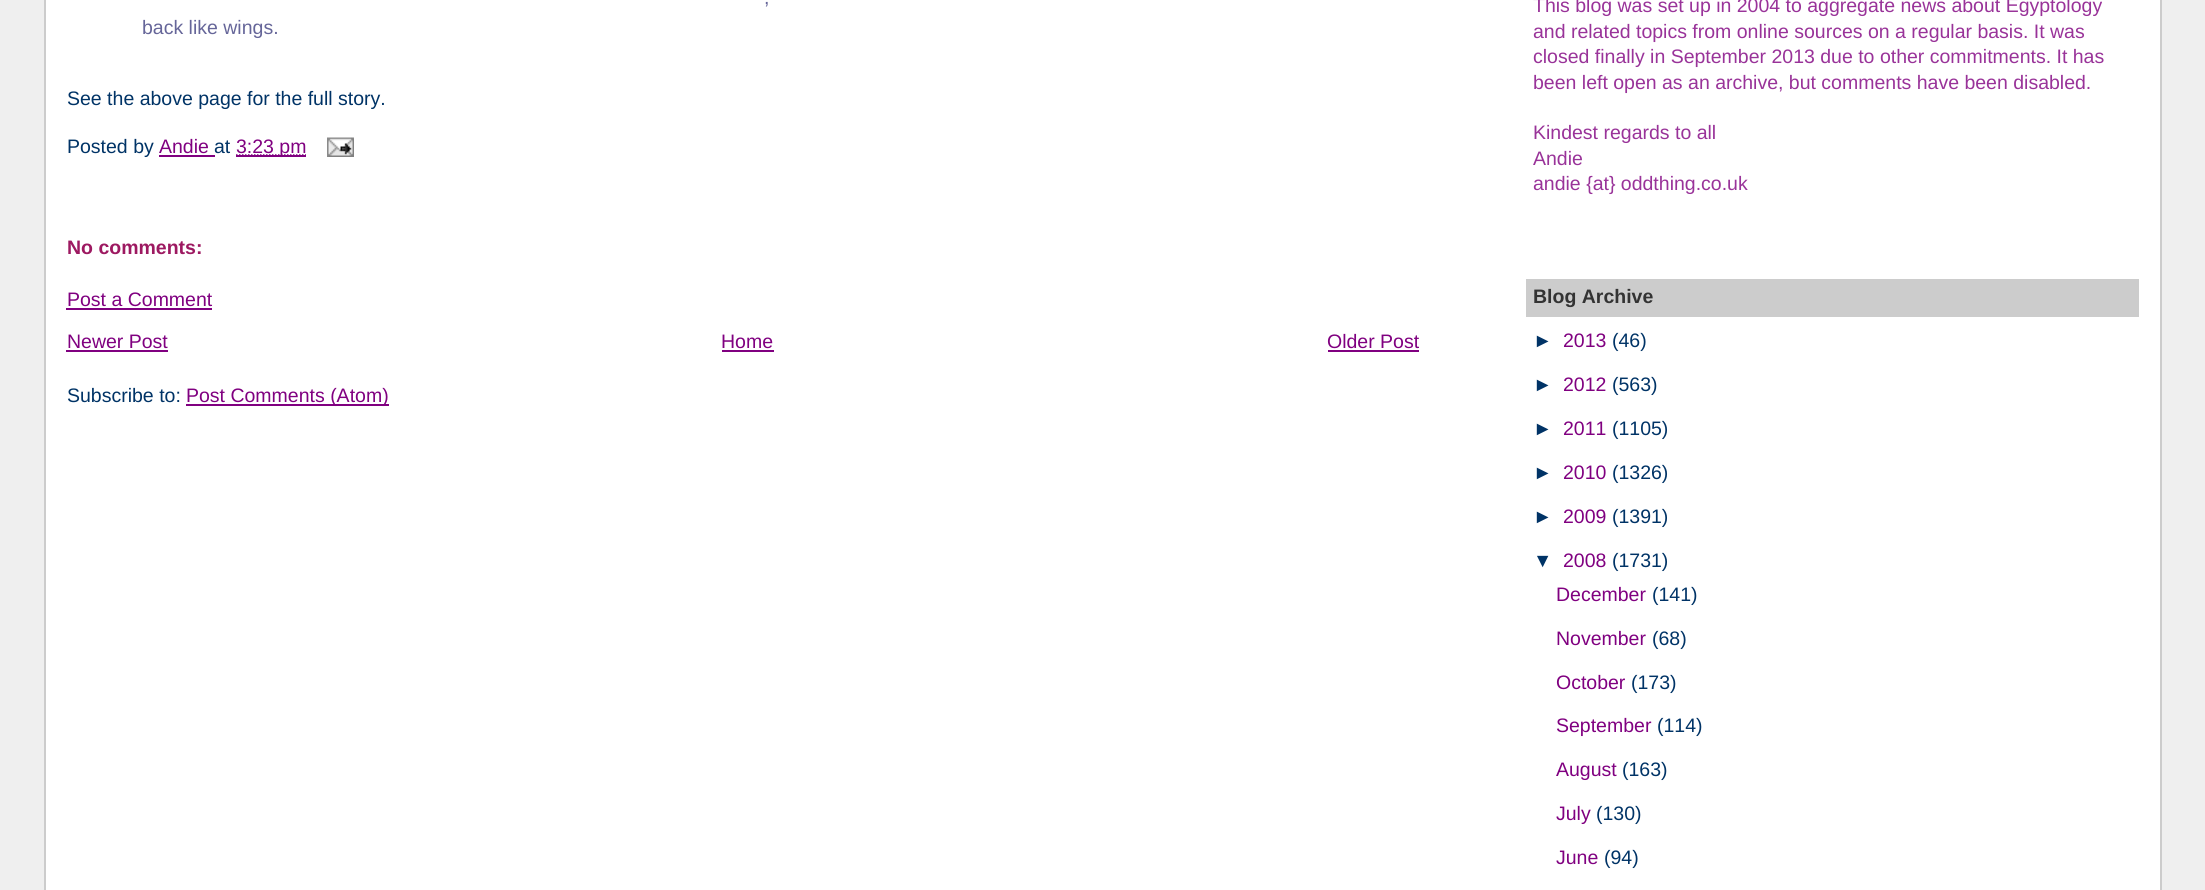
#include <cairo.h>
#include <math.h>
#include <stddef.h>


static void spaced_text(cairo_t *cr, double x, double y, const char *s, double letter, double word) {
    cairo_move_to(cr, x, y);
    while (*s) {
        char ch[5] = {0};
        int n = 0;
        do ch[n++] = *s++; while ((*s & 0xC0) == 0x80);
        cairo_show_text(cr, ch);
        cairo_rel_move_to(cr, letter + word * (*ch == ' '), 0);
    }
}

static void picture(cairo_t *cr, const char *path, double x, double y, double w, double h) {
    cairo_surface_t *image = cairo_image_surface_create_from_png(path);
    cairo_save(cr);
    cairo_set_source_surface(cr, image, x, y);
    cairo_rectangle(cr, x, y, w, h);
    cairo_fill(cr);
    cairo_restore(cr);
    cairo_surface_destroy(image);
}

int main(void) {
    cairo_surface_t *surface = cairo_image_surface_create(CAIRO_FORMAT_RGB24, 2205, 890);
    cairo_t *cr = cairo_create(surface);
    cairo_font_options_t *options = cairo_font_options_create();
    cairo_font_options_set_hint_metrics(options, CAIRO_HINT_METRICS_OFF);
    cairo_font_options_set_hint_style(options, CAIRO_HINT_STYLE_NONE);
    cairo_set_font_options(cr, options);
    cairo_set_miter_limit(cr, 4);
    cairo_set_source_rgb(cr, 0.937, 0.937, 0.937);
    cairo_paint(cr);
    cairo_set_source_rgb(cr, 1, 1, 1);
    cairo_rectangle(cr, 46, 0, 2114, 890);
    cairo_fill(cr);
    cairo_set_source_rgb(cr, 0.8, 0.8, 0.8);
    cairo_rectangle(cr, 2160, 0, 2, 890);
    cairo_fill(cr);
    cairo_rectangle(cr, 44, 0, 2, 890);
    cairo_fill(cr);
    cairo_select_font_face(cr, "Liberation Sans", CAIRO_FONT_SLANT_NORMAL, CAIRO_FONT_WEIGHT_NORMAL);
    cairo_set_font_size(cr, 19.5);
    cairo_set_source_rgb(cr, 0.4, 0.4, 0.6);
    spaced_text(cr, 764, 4, ",", 0, 2);
    cairo_move_to(cr, 142, 34);
    cairo_show_text(cr, "back like wings.");
    cairo_set_source_rgb(cr, 0, 0.2, 0.4);
    cairo_move_to(cr, 67, 105);
    cairo_show_text(cr, "See the above page for the full story.");
    cairo_move_to(cr, 67, 153);
    cairo_show_text(cr, "Posted by");
    cairo_set_source_rgb(cr, 0.502, 0, 0.502);
    cairo_move_to(cr, 159, 153);
    cairo_show_text(cr, "Andie");
    cairo_rectangle(cr, 159, 155, 56, 2);
    cairo_fill(cr);
    cairo_set_source_rgb(cr, 0, 0.2, 0.4);
    cairo_move_to(cr, 214, 153);
    cairo_show_text(cr, "at");
    cairo_new_path(cr);
    cairo_move_to(cr, 236, 155);
    cairo_line_to(cr, 306, 155);
    cairo_set_source_rgb(cr, 0.502, 0, 0.502);
    cairo_set_line_width(cr, 1.5);
    cairo_set_dash(cr, (double[]){1.5, 1.5}, 2, 0);
    cairo_stroke(cr);
    cairo_rectangle(cr, 236, 155, 70, 2);
    cairo_fill(cr);
    cairo_move_to(cr, 236, 153);
    cairo_show_text(cr, "3:23 pm");
    picture(cr, "img1.png", 327, 137, 27, 20);
    cairo_select_font_face(cr, "Liberation Sans", CAIRO_FONT_SLANT_NORMAL, CAIRO_FONT_WEIGHT_BOLD);
    cairo_set_source_rgb(cr, 0.616, 0.098, 0.38);
    cairo_move_to(cr, 67, 254);
    cairo_show_text(cr, "No comments:");
    cairo_select_font_face(cr, "Liberation Sans", CAIRO_FONT_SLANT_NORMAL, CAIRO_FONT_WEIGHT_NORMAL);
    cairo_set_source_rgb(cr, 0.502, 0, 0.502);
    cairo_move_to(cr, 67, 306);
    cairo_show_text(cr, "Post a Comment");
    cairo_rectangle(cr, 66, 308, 146, 2);
    cairo_fill(cr);
    cairo_move_to(cr, 67, 348);
    cairo_show_text(cr, "Newer Post");
    cairo_rectangle(cr, 66, 350, 102, 2);
    cairo_fill(cr);
    cairo_move_to(cr, 721, 348);
    cairo_show_text(cr, "Home");
    cairo_rectangle(cr, 722, 350, 52, 2);
    cairo_fill(cr);
    cairo_save(cr);
    cairo_rectangle(cr, 66, 330, 1353, 23);
    cairo_clip(cr);
    cairo_move_to(cr, 1327, 348);
    cairo_show_text(cr, "Older Post");
    cairo_restore(cr);
    cairo_rectangle(cr, 1328, 350, 91, 2);
    cairo_fill(cr);
    cairo_set_source_rgb(cr, 0, 0.2, 0.4);
    cairo_move_to(cr, 67, 402);
    cairo_show_text(cr, "Subscribe to:");
    cairo_set_source_rgb(cr, 0.502, 0, 0.502);
    cairo_rectangle(cr, 186, 404, 203, 2);
    cairo_fill(cr);
    cairo_move_to(cr, 186, 402);
    cairo_show_text(cr, "Post Comments (Atom)");
    cairo_set_source_rgb(cr, 0.6, 0.2, 0.6);
    cairo_move_to(cr, 1533, 12);
    cairo_show_text(cr, "This blog was set up in 2004 to aggregate news about Egyptology");
    cairo_move_to(cr, 1533, 38);
    cairo_show_text(cr, "and related topics from online sources on a regular basis. It was");
    cairo_move_to(cr, 1533, 63);
    cairo_show_text(cr, "closed finally in September 2013 due to other commitments. It has");
    cairo_move_to(cr, 1533, 89);
    cairo_show_text(cr, "been left open as an archive, but comments have been disabled.");
    cairo_move_to(cr, 1533, 139);
    cairo_show_text(cr, "Kindest regards to all");
    cairo_move_to(cr, 1533, 165);
    cairo_show_text(cr, "Andie");
    cairo_move_to(cr, 1533, 190);
    cairo_show_text(cr, "andie {at} oddthing.co.uk");
    cairo_set_source_rgb(cr, 0.8, 0.8, 0.8);
    cairo_rectangle(cr, 1526, 279, 613, 38);
    cairo_fill(cr);
    cairo_select_font_face(cr, "Liberation Sans", CAIRO_FONT_SLANT_NORMAL, CAIRO_FONT_WEIGHT_BOLD);
    cairo_set_source_rgb(cr, 0.2, 0.2, 0.2);
    cairo_move_to(cr, 1533, 303);
    cairo_show_text(cr, "Blog Archive");
    cairo_select_font_face(cr, "Liberation Sans", CAIRO_FONT_SLANT_NORMAL, CAIRO_FONT_WEIGHT_NORMAL);
    cairo_set_source_rgb(cr, 0, 0.2, 0.4);
    cairo_move_to(cr, 1533, 347);
    cairo_show_text(cr, "►");
    cairo_set_source_rgb(cr, 0.502, 0, 0.502);
    cairo_move_to(cr, 1563, 347);
    cairo_show_text(cr, "2013");
    cairo_set_source_rgb(cr, 0, 0.2, 0.4);
    cairo_move_to(cr, 1612, 347);
    cairo_show_text(cr, "(46)");
    cairo_move_to(cr, 1533, 391);
    cairo_show_text(cr, "►");
    cairo_set_source_rgb(cr, 0.502, 0, 0.502);
    cairo_move_to(cr, 1563, 391);
    cairo_show_text(cr, "2012");
    cairo_set_source_rgb(cr, 0, 0.2, 0.4);
    cairo_move_to(cr, 1612, 391);
    cairo_show_text(cr, "(563)");
    cairo_move_to(cr, 1533, 435);
    cairo_show_text(cr, "►");
    cairo_set_source_rgb(cr, 0.502, 0, 0.502);
    cairo_move_to(cr, 1563, 435);
    cairo_show_text(cr, "2011");
    cairo_set_source_rgb(cr, 0, 0.2, 0.4);
    cairo_move_to(cr, 1612, 435);
    cairo_show_text(cr, "(1105)");
    cairo_move_to(cr, 1533, 479);
    cairo_show_text(cr, "►");
    cairo_set_source_rgb(cr, 0.502, 0, 0.502);
    cairo_move_to(cr, 1563, 479);
    cairo_show_text(cr, "2010");
    cairo_set_source_rgb(cr, 0, 0.2, 0.4);
    cairo_move_to(cr, 1612, 479);
    cairo_show_text(cr, "(1326)");
    cairo_move_to(cr, 1533, 523);
    cairo_show_text(cr, "►");
    cairo_set_source_rgb(cr, 0.502, 0, 0.502);
    cairo_move_to(cr, 1563, 523);
    cairo_show_text(cr, "2009");
    cairo_set_source_rgb(cr, 0, 0.2, 0.4);
    cairo_move_to(cr, 1612, 523);
    cairo_show_text(cr, "(1391)");
    cairo_move_to(cr, 1533, 567);
    cairo_show_text(cr, "▼");
    cairo_set_source_rgb(cr, 0.502, 0, 0.502);
    cairo_move_to(cr, 1563, 567);
    cairo_show_text(cr, "2008");
    cairo_set_source_rgb(cr, 0, 0.2, 0.4);
    cairo_move_to(cr, 1612, 567);
    cairo_show_text(cr, "(1731)");
    cairo_set_source_rgb(cr, 0.502, 0, 0.502);
    cairo_move_to(cr, 1556, 601);
    cairo_show_text(cr, "December");
    cairo_set_source_rgb(cr, 0, 0.2, 0.4);
    cairo_move_to(cr, 1652, 601);
    cairo_show_text(cr, "(141)");
    cairo_set_source_rgb(cr, 0.502, 0, 0.502);
    cairo_move_to(cr, 1556, 645);
    cairo_show_text(cr, "November");
    cairo_set_source_rgb(cr, 0, 0.2, 0.4);
    cairo_move_to(cr, 1652, 645);
    cairo_show_text(cr, "(68)");
    cairo_set_source_rgb(cr, 0.502, 0, 0.502);
    cairo_move_to(cr, 1556, 689);
    cairo_show_text(cr, "October");
    cairo_set_source_rgb(cr, 0, 0.2, 0.4);
    cairo_move_to(cr, 1631, 689);
    cairo_show_text(cr, "(173)");
    cairo_set_source_rgb(cr, 0.502, 0, 0.502);
    cairo_move_to(cr, 1556, 732);
    cairo_show_text(cr, "September");
    cairo_set_source_rgb(cr, 0, 0.2, 0.4);
    cairo_move_to(cr, 1657, 732);
    cairo_show_text(cr, "(114)");
    cairo_set_source_rgb(cr, 0.502, 0, 0.502);
    cairo_move_to(cr, 1556, 776);
    cairo_show_text(cr, "August");
    cairo_set_source_rgb(cr, 0, 0.2, 0.4);
    cairo_move_to(cr, 1622, 776);
    cairo_show_text(cr, "(163)");
    cairo_set_source_rgb(cr, 0.502, 0, 0.502);
    cairo_move_to(cr, 1556, 820);
    cairo_show_text(cr, "July");
    cairo_set_source_rgb(cr, 0, 0.2, 0.4);
    cairo_move_to(cr, 1596, 820);
    cairo_show_text(cr, "(130)");
    cairo_set_source_rgb(cr, 0.502, 0, 0.502);
    cairo_move_to(cr, 1556, 864);
    cairo_show_text(cr, "June");
    cairo_set_source_rgb(cr, 0, 0.2, 0.4);
    cairo_move_to(cr, 1604, 864);
    cairo_show_text(cr, "(94)");
    cairo_surface_write_to_png(surface, "page.png");
    cairo_font_options_destroy(options);
    cairo_destroy(cr);
    cairo_surface_destroy(surface);
    return 0;
}
